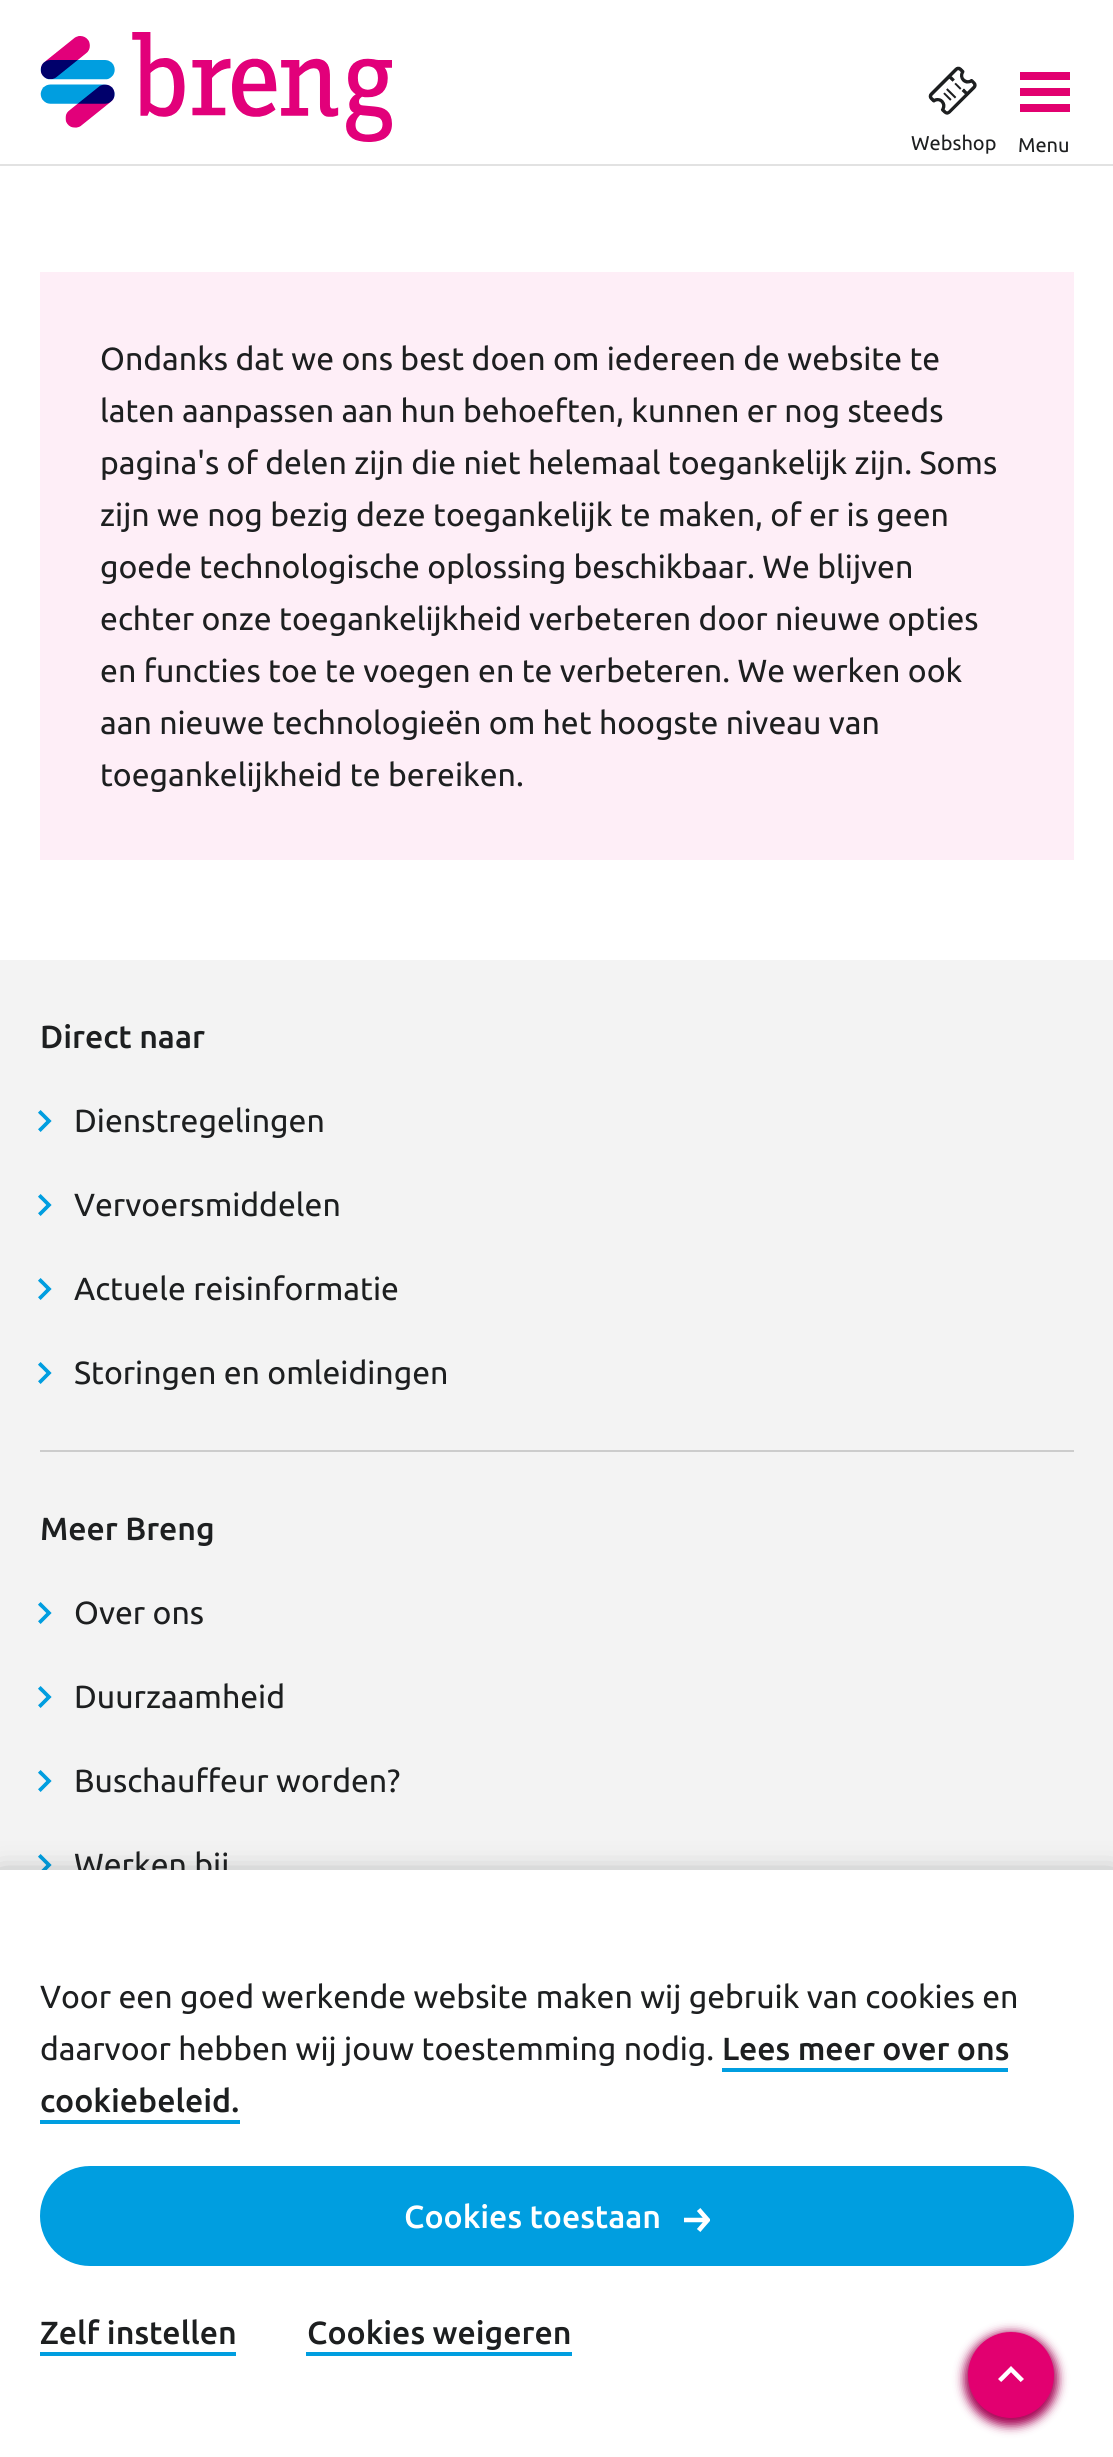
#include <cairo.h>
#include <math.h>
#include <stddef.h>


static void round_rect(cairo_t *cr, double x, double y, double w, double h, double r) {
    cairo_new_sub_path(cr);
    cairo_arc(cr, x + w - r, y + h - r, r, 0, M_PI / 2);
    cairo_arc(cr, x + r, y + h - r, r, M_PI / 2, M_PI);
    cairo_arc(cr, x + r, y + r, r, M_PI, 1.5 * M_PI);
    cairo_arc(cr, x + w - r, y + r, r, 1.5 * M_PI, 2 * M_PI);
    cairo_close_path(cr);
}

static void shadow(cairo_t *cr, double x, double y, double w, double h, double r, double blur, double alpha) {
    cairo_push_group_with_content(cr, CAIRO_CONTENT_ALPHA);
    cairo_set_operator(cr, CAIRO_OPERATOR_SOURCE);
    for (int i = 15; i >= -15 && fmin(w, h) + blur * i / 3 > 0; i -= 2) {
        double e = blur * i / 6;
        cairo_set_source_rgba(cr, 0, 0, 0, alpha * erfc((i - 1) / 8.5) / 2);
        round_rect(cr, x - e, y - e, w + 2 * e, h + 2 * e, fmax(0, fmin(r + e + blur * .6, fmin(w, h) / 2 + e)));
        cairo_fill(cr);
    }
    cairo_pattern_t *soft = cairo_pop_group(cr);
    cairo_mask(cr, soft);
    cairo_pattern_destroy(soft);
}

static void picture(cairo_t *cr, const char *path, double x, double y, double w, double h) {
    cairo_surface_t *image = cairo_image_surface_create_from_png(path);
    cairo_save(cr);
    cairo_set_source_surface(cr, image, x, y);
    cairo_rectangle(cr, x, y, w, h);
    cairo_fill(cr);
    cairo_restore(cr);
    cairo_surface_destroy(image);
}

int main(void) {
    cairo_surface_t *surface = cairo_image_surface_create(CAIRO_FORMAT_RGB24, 1113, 2457);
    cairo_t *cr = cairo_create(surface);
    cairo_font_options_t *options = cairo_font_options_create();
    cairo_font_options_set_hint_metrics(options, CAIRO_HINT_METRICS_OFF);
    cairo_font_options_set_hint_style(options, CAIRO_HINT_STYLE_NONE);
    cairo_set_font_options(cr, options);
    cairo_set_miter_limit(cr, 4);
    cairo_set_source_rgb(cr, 1, 1, 1);
    cairo_paint(cr);
    cairo_set_source_rgb(cr, 0.886, 0.886, 0.886);
    cairo_rectangle(cr, 0, 164, 1113, 2);
    cairo_fill(cr);
    picture(cr, "img1.png", 40, 32, 352, 110);
    picture(cr, "img2.png", 928, 66, 49, 49);
    cairo_select_font_face(cr, "Ubuntu", CAIRO_FONT_SLANT_NORMAL, CAIRO_FONT_WEIGHT_NORMAL);
    cairo_set_font_size(cr, 20);
    cairo_set_source_rgb(cr, 0.114, 0.122, 0.125);
    cairo_move_to(cr, 911, 150);
    cairo_show_text(cr, "Webshop");
    cairo_set_source_rgb(cr, 0.886, 0, 0.439);
    cairo_rectangle(cr, 1020, 72, 50, 8);
    cairo_fill(cr);
    cairo_rectangle(cr, 1020, 88, 50, 8);
    cairo_fill(cr);
    cairo_rectangle(cr, 1020, 104, 50, 8);
    cairo_fill(cr);
    cairo_set_source_rgb(cr, 0.114, 0.122, 0.125);
    cairo_move_to(cr, 1018, 152);
    cairo_show_text(cr, "Menu");
    cairo_set_source_rgb(cr, 0.996, 0.933, 0.965);
    cairo_rectangle(cr, 40, 272, 1034, 588);
    cairo_fill(cr);
    cairo_set_font_size(cr, 32);
    cairo_set_source_rgb(cr, 0.114, 0.122, 0.125);
    cairo_move_to(cr, 100, 370);
    cairo_show_text(cr, "Ondanks dat we ons best doen om iedereen de website te");
    cairo_move_to(cr, 100, 422);
    cairo_show_text(cr, "laten aanpassen aan hun behoeften, kunnen er nog steeds");
    cairo_move_to(cr, 100, 474);
    cairo_show_text(cr, "pagina's of delen zijn die niet helemaal toegankelijk zijn. Soms");
    cairo_move_to(cr, 100, 526);
    cairo_show_text(cr, "zijn we nog bezig deze toegankelijk te maken, of er is geen");
    cairo_move_to(cr, 100, 578);
    cairo_show_text(cr, "goede technologische oplossing beschikbaar. We blijven");
    cairo_move_to(cr, 100, 630);
    cairo_show_text(cr, "echter onze toegankelijkheid verbeteren door nieuwe opties");
    cairo_move_to(cr, 100, 682);
    cairo_show_text(cr, "en functies toe te voegen en te verbeteren. We werken ook");
    cairo_move_to(cr, 100, 734);
    cairo_show_text(cr, "aan nieuwe technologieën om het hoogste niveau van");
    cairo_move_to(cr, 100, 786);
    cairo_show_text(cr, "toegankelijkheid te bereiken.");
    cairo_set_source_rgb(cr, 0.953, 0.953, 0.953);
    cairo_rectangle(cr, 0, 960, 1113, 910);
    cairo_fill(cr);
    cairo_set_source_rgb(cr, 0.8, 0.8, 0.8);
    cairo_rectangle(cr, 40, 1450, 1034, 2);
    cairo_fill(cr);
    cairo_select_font_face(cr, "Ubuntu Medium", CAIRO_FONT_SLANT_NORMAL, CAIRO_FONT_WEIGHT_NORMAL);
    cairo_set_source_rgb(cr, 0.114, 0.122, 0.125);
    cairo_move_to(cr, 40, 1048);
    cairo_show_text(cr, "Direct naar");
    picture(cr, "img3.png", 38, 1110, 14, 22);
    cairo_select_font_face(cr, "Ubuntu", CAIRO_FONT_SLANT_NORMAL, CAIRO_FONT_WEIGHT_NORMAL);
    cairo_move_to(cr, 74, 1132);
    cairo_show_text(cr, "Dienstregelingen");
    picture(cr, "img3.png", 38, 1194, 14, 22);
    cairo_move_to(cr, 74, 1216);
    cairo_show_text(cr, "Vervoersmiddelen");
    picture(cr, "img3.png", 38, 1278, 14, 22);
    cairo_move_to(cr, 74, 1300);
    cairo_show_text(cr, "Actuele reisinformatie");
    picture(cr, "img3.png", 38, 1362, 14, 22);
    cairo_move_to(cr, 74, 1384);
    cairo_show_text(cr, "Storingen en omleidingen");
    cairo_select_font_face(cr, "Ubuntu Medium", CAIRO_FONT_SLANT_NORMAL, CAIRO_FONT_WEIGHT_NORMAL);
    cairo_move_to(cr, 40, 1540);
    cairo_show_text(cr, "Meer Breng");
    picture(cr, "img3.png", 38, 1602, 14, 22);
    cairo_select_font_face(cr, "Ubuntu", CAIRO_FONT_SLANT_NORMAL, CAIRO_FONT_WEIGHT_NORMAL);
    cairo_move_to(cr, 74, 1624);
    cairo_show_text(cr, "Over ons");
    picture(cr, "img3.png", 38, 1686, 14, 22);
    cairo_move_to(cr, 74, 1708);
    cairo_show_text(cr, "Duurzaamheid");
    picture(cr, "img3.png", 38, 1770, 14, 22);
    cairo_move_to(cr, 74, 1792);
    cairo_show_text(cr, "Buschauffeur worden?");
    picture(cr, "img4.png", 38, 1854, 14, 16);
    cairo_move_to(cr, 74, 1876);
    cairo_show_text(cr, "Werken bij");
    cairo_set_source_rgb(cr, 0.114, 0.122, 0.125);
    shadow(cr, 0, 1878, 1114, 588, 0, 15, 0.45);
    cairo_set_source_rgb(cr, 1, 1, 1);
    cairo_rectangle(cr, 0, 1870, 1113, 587);
    cairo_fill(cr);
    cairo_set_source_rgb(cr, 0.114, 0.122, 0.125);
    cairo_move_to(cr, 40, 2008);
    cairo_show_text(cr, "Voor een goed werkende website maken wij gebruik van cookies en");
    cairo_move_to(cr, 40, 2060);
    cairo_show_text(cr, "daarvoor hebben wij jouw toestemming nodig.");
    cairo_select_font_face(cr, "Ubuntu Medium", CAIRO_FONT_SLANT_NORMAL, CAIRO_FONT_WEIGHT_NORMAL);
    cairo_move_to(cr, 722, 2060);
    cairo_show_text(cr, "Lees meer over ons");
    cairo_set_source_rgb(cr, 0, 0.62, 0.878);
    cairo_rectangle(cr, 722, 2068, 286, 4);
    cairo_fill(cr);
    cairo_set_source_rgb(cr, 0.114, 0.122, 0.125);
    cairo_move_to(cr, 40, 2112);
    cairo_show_text(cr, "cookiebeleid.");
    cairo_set_source_rgb(cr, 0, 0.62, 0.878);
    cairo_rectangle(cr, 40, 2120, 200, 4);
    cairo_fill(cr);
    round_rect(cr, 40, 2166, 1034, 100, 50);
    cairo_fill(cr);
    cairo_set_source_rgb(cr, 1, 1, 1);
    cairo_move_to(cr, 404, 2228);
    cairo_show_text(cr, "Cookies toestaan");
    picture(cr, "img5.png", 684, 2208, 26, 24);
    cairo_set_source_rgb(cr, 0.114, 0.122, 0.125);
    cairo_move_to(cr, 40, 2344);
    cairo_show_text(cr, "Zelf instellen");
    cairo_set_source_rgb(cr, 0, 0.62, 0.878);
    cairo_rectangle(cr, 40, 2352, 196, 4);
    cairo_fill(cr);
    cairo_set_source_rgb(cr, 0.114, 0.122, 0.125);
    cairo_move_to(cr, 307, 2344);
    cairo_show_text(cr, "Cookies weigeren");
    cairo_set_source_rgb(cr, 0, 0.62, 0.878);
    cairo_rectangle(cr, 306, 2352, 266, 4);
    cairo_fill(cr);
    cairo_set_source_rgb(cr, 0.647, 0, 0.322);
    shadow(cr, 964, 2332, 94, 94, 47, 5, 1);
    cairo_set_source_rgb(cr, 0.886, 0, 0.439);
    cairo_arc(cr, 1011, 2375, 43, 0, 2 * M_PI);
    cairo_fill(cr);
    picture(cr, "img6.png", 998, 2366, 26, 16);
    cairo_surface_write_to_png(surface, "page.png");
    cairo_font_options_destroy(options);
    cairo_destroy(cr);
    cairo_surface_destroy(surface);
    return 0;
}
